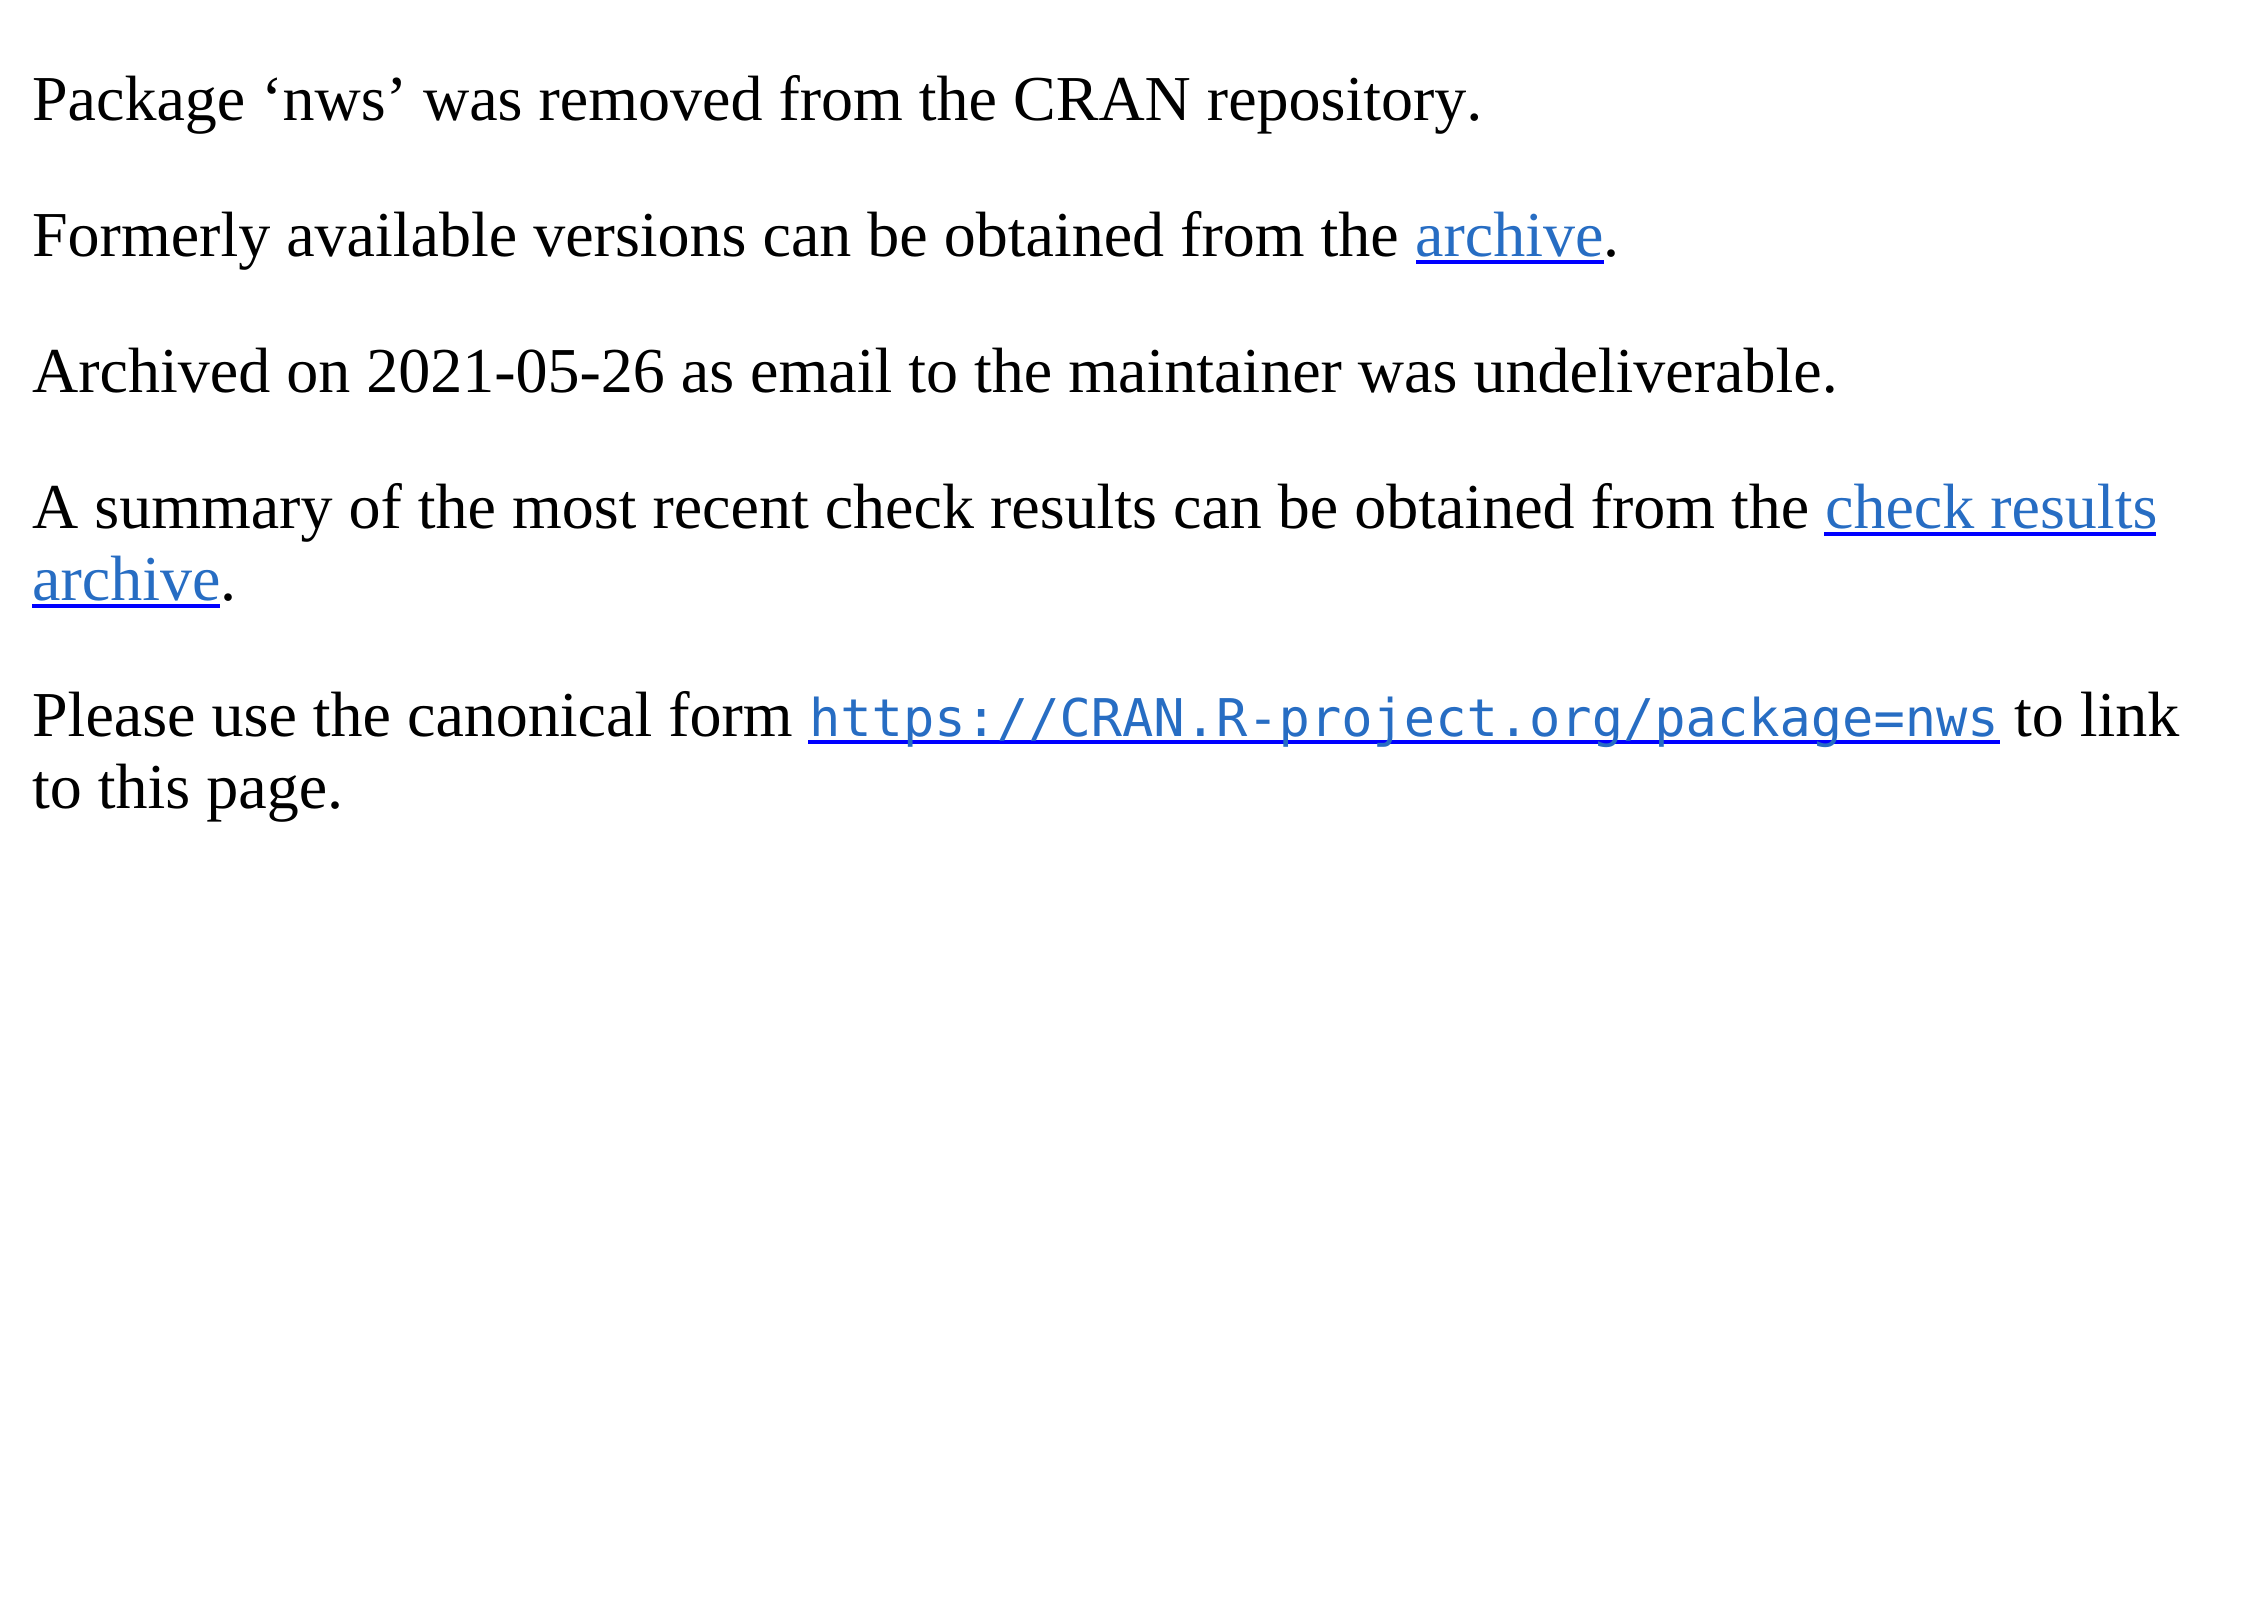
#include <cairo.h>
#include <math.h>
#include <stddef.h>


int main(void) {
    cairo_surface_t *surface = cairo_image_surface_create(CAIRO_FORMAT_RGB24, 2243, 1610);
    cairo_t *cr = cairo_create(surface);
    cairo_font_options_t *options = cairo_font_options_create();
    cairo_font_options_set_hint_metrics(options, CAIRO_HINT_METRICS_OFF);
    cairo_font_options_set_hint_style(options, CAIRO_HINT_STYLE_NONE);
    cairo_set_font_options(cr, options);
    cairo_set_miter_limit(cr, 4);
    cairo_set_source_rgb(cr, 1, 1, 1);
    cairo_paint(cr);
    cairo_select_font_face(cr, "Liberation Serif", CAIRO_FONT_SLANT_NORMAL, CAIRO_FONT_WEIGHT_NORMAL);
    cairo_set_font_size(cr, 64);
    cairo_set_source_rgb(cr, 0, 0, 0);
    cairo_move_to(cr, 32, 120);
    cairo_show_text(cr, "Package ‘nws’ was removed from the CRAN repository.");
    cairo_move_to(cr, 32, 256);
    cairo_show_text(cr, "Formerly available versions can be obtained from the");
    cairo_set_source_rgb(cr, 0.153, 0.427, 0.765);
    cairo_move_to(cr, 1415, 256);
    cairo_show_text(cr, "archive");
    cairo_set_source_rgb(cr, 0, 0, 1);
    cairo_rectangle(cr, 1416, 260, 188, 4);
    cairo_fill(cr);
    cairo_set_source_rgb(cr, 0, 0, 0);
    cairo_move_to(cr, 1603, 256);
    cairo_show_text(cr, ".");
    cairo_move_to(cr, 32, 392);
    cairo_show_text(cr, "Archived on 2021-05-26 as email to the maintainer was undeliverable.");
    cairo_move_to(cr, 32, 528);
    cairo_show_text(cr, "A summary of the most recent check results can be obtained from the");
    cairo_set_source_rgb(cr, 0.153, 0.427, 0.765);
    cairo_move_to(cr, 1825, 528);
    cairo_show_text(cr, "check results");
    cairo_set_source_rgb(cr, 0, 0, 1);
    cairo_rectangle(cr, 1824, 532, 332, 4);
    cairo_fill(cr);
    cairo_set_source_rgb(cr, 0.153, 0.427, 0.765);
    cairo_move_to(cr, 32, 600);
    cairo_show_text(cr, "archive");
    cairo_set_source_rgb(cr, 0, 0, 1);
    cairo_rectangle(cr, 32, 604, 188, 4);
    cairo_fill(cr);
    cairo_set_source_rgb(cr, 0, 0, 0);
    cairo_move_to(cr, 220, 600);
    cairo_show_text(cr, ".");
    cairo_move_to(cr, 32, 736);
    cairo_show_text(cr, "Please use the canonical form");
    cairo_set_source_rgb(cr, 0, 0, 1);
    cairo_rectangle(cr, 808, 740, 1192, 4);
    cairo_fill(cr);
    cairo_select_font_face(cr, "DejaVu Sans Mono", CAIRO_FONT_SLANT_NORMAL, CAIRO_FONT_WEIGHT_NORMAL);
    cairo_set_font_size(cr, 52);
    cairo_set_source_rgb(cr, 0.153, 0.427, 0.765);
    cairo_move_to(cr, 809, 736);
    cairo_show_text(cr, "https://CRAN.R-project.org/package=nws");
    cairo_select_font_face(cr, "Liberation Serif", CAIRO_FONT_SLANT_NORMAL, CAIRO_FONT_WEIGHT_NORMAL);
    cairo_set_font_size(cr, 64);
    cairo_set_source_rgb(cr, 0, 0, 0);
    cairo_move_to(cr, 2014, 736);
    cairo_show_text(cr, "to link");
    cairo_move_to(cr, 32, 808);
    cairo_show_text(cr, "to this page.");
    cairo_surface_write_to_png(surface, "page.png");
    cairo_font_options_destroy(options);
    cairo_destroy(cr);
    cairo_surface_destroy(surface);
    return 0;
}
